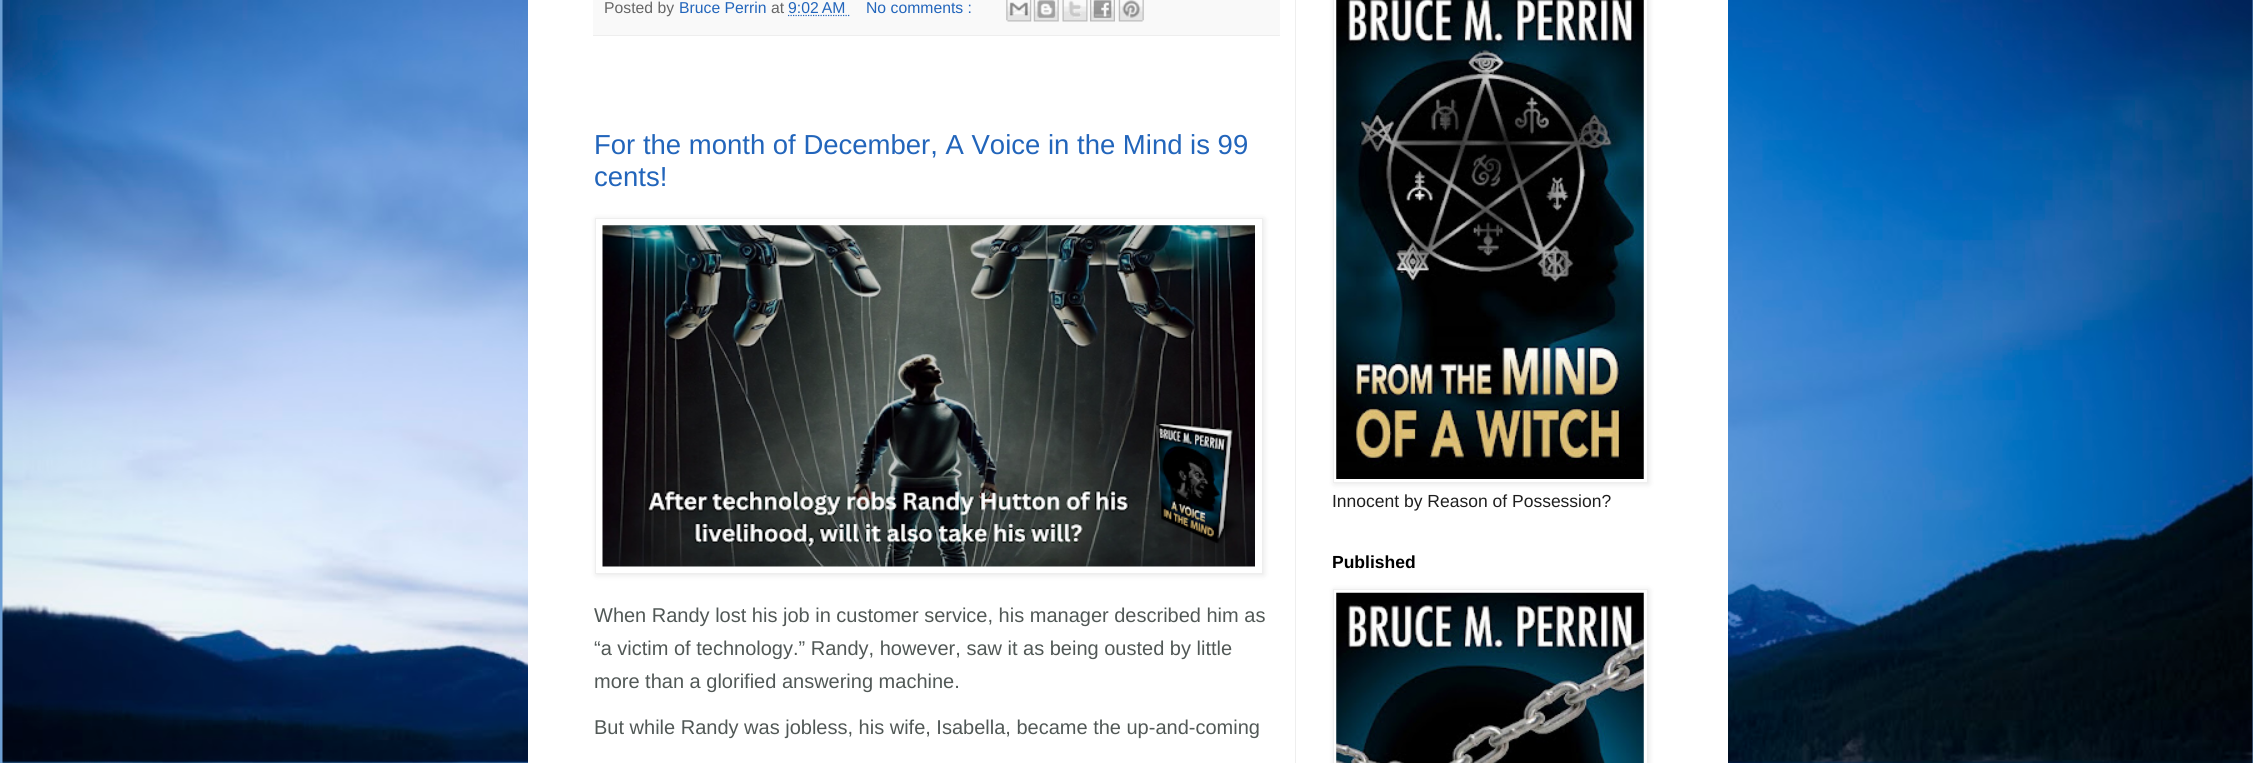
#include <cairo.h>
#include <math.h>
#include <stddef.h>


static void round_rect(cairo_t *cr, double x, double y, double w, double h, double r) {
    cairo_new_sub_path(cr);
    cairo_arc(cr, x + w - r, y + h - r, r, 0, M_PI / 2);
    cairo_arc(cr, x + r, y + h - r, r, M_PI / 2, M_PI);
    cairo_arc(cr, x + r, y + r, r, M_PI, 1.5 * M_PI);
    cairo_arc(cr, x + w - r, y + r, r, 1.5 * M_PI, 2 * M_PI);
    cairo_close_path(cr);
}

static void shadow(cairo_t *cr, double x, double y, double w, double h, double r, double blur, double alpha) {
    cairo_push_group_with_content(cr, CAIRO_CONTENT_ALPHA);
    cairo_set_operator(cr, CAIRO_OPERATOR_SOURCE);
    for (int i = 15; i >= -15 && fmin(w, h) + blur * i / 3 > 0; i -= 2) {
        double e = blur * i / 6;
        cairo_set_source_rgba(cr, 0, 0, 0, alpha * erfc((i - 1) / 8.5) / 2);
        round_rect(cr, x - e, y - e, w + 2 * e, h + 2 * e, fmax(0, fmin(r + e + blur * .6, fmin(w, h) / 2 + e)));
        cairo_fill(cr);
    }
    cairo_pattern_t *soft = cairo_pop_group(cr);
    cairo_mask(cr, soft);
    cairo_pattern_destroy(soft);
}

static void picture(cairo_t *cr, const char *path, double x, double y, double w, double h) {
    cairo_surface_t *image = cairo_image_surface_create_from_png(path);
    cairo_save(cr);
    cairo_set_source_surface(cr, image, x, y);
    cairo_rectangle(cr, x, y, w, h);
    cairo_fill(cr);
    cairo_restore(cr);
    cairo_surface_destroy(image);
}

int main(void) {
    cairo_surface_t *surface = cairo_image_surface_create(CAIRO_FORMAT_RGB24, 2253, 763);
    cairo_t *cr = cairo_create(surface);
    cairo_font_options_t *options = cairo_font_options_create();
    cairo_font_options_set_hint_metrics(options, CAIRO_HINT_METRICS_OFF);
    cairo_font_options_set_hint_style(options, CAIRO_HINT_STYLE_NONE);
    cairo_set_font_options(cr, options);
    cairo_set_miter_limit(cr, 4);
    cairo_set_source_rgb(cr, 0.427, 0.624, 0.831);
    cairo_paint(cr);
    picture(cr, "img1.png", 2, 0, 2251, 763);
    cairo_set_source_rgb(cr, 1, 1, 1);
    cairo_rectangle(cr, 528, 0, 1200, 763);
    cairo_fill(cr);
    cairo_set_source_rgb(cr, 0.933, 0.933, 0.933);
    cairo_rectangle(cr, 1295, 0, 1, 763);
    cairo_fill(cr);
    cairo_set_source_rgb(cr, 0.976, 0.976, 0.976);
    cairo_rectangle(cr, 593, 0, 687, 35);
    cairo_fill(cr);
    cairo_set_source_rgb(cr, 0.933, 0.933, 0.933);
    cairo_rectangle(cr, 593, 35, 687, 1);
    cairo_fill(cr);
    cairo_select_font_face(cr, "Liberation Sans", CAIRO_FONT_SLANT_NORMAL, CAIRO_FONT_WEIGHT_NORMAL);
    cairo_set_font_size(cr, 15.75);
    cairo_set_source_rgb(cr, 0.4, 0.4, 0.4);
    cairo_move_to(cr, 604, 13);
    cairo_show_text(cr, "Posted by");
    cairo_set_source_rgb(cr, 0.133, 0.396, 0.733);
    cairo_move_to(cr, 679, 13);
    cairo_show_text(cr, "Bruce Perrin");
    cairo_set_source_rgb(cr, 0.4, 0.4, 0.4);
    cairo_move_to(cr, 771, 13);
    cairo_show_text(cr, "at");
    cairo_set_source_rgb(cr, 0.133, 0.396, 0.733);
    cairo_move_to(cr, 788, 13);
    cairo_show_text(cr, "9:02 AM");
    cairo_new_path(cr);
    cairo_move_to(cr, 788, 15.5);
    cairo_line_to(cr, 850, 15.5);
    cairo_set_line_width(cr, 1.2);
    cairo_set_dash(cr, (double[]){1.25, 1.25}, 2, 0);
    cairo_stroke(cr);
    cairo_move_to(cr, 866, 13);
    cairo_show_text(cr, "No comments :");
    picture(cr, "img2.png", 1006, 0, 26, 22);
    picture(cr, "img3.png", 1033, 0, 26, 22);
    picture(cr, "img4.png", 1062, 0, 26, 22);
    picture(cr, "img5.png", 1090, 0, 25, 22);
    picture(cr, "img6.png", 1118, 0, 26, 22);
    cairo_set_font_size(cr, 27.5);
    cairo_move_to(cr, 594, 154);
    cairo_show_text(cr, "For the month of December, A Voice in the Mind is 99");
    cairo_move_to(cr, 594, 186);
    cairo_show_text(cr, "cents!");
    cairo_set_source_rgb(cr, 0, 0, 0);
    shadow(cr, 596, 219, 668, 356, 0, 3, 0.1);
    cairo_set_source_rgb(cr, 1, 1, 1);
    cairo_rectangle(cr, 595.5, 218.5, 667, 355);
    cairo_fill_preserve(cr);
    cairo_set_source_rgb(cr, 0.933, 0.933, 0.933);
    cairo_set_line_width(cr, 1);
    cairo_set_dash(cr, NULL, 0, 0);
    cairo_stroke(cr);
    picture(cr, "img7.png", 602, 225, 653, 342);
    cairo_set_font_size(cr, 20);
    cairo_set_source_rgb(cr, 0.318, 0.345, 0.337);
    cairo_move_to(cr, 594, 622);
    cairo_show_text(cr, "When Randy lost his job in customer service, his manager described him as");
    cairo_move_to(cr, 594, 655);
    cairo_show_text(cr, "“a victim of technology.” Randy, however, saw it as being ousted by little");
    cairo_move_to(cr, 594, 688);
    cairo_show_text(cr, "more than a glorified answering machine.");
    cairo_move_to(cr, 594, 734);
    cairo_show_text(cr, "But while Randy was jobless, his wife, Isabella, became the up-and-coming");
    cairo_set_source_rgb(cr, 0, 0, 0);
    shadow(cr, 1334, -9, 315, 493, 0, 3, 0.1);
    cairo_set_source_rgb(cr, 1, 1, 1);
    cairo_rectangle(cr, 1333.5, -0.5, 314, 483);
    cairo_fill_preserve(cr);
    cairo_set_source_rgb(cr, 0.933, 0.933, 0.933);
    cairo_stroke(cr);
    picture(cr, "img8.png", 1336, 0, 308, 479);
    cairo_set_font_size(cr, 17.5);
    cairo_set_source_rgb(cr, 0.122, 0.122, 0.122);
    cairo_move_to(cr, 1332, 507);
    cairo_show_text(cr, "Innocent by Reason of Possession?");
    cairo_select_font_face(cr, "Liberation Sans", CAIRO_FONT_SLANT_NORMAL, CAIRO_FONT_WEIGHT_BOLD);
    cairo_set_source_rgb(cr, 0, 0, 0);
    cairo_move_to(cr, 1332, 568);
    cairo_show_text(cr, "Published");
    cairo_set_source_rgb(cr, 0, 0, 0);
    shadow(cr, 1334, 590, 315, 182, 0, 3, 0.1);
    cairo_set_source_rgb(cr, 1, 1, 1);
    cairo_rectangle(cr, 1333.5, 589.5, 314, 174);
    cairo_fill_preserve(cr);
    cairo_set_source_rgb(cr, 0.933, 0.933, 0.933);
    cairo_stroke(cr);
    picture(cr, "img9.png", 1336, 592, 308, 171);
    cairo_surface_write_to_png(surface, "page.png");
    cairo_font_options_destroy(options);
    cairo_destroy(cr);
    cairo_surface_destroy(surface);
    return 0;
}
